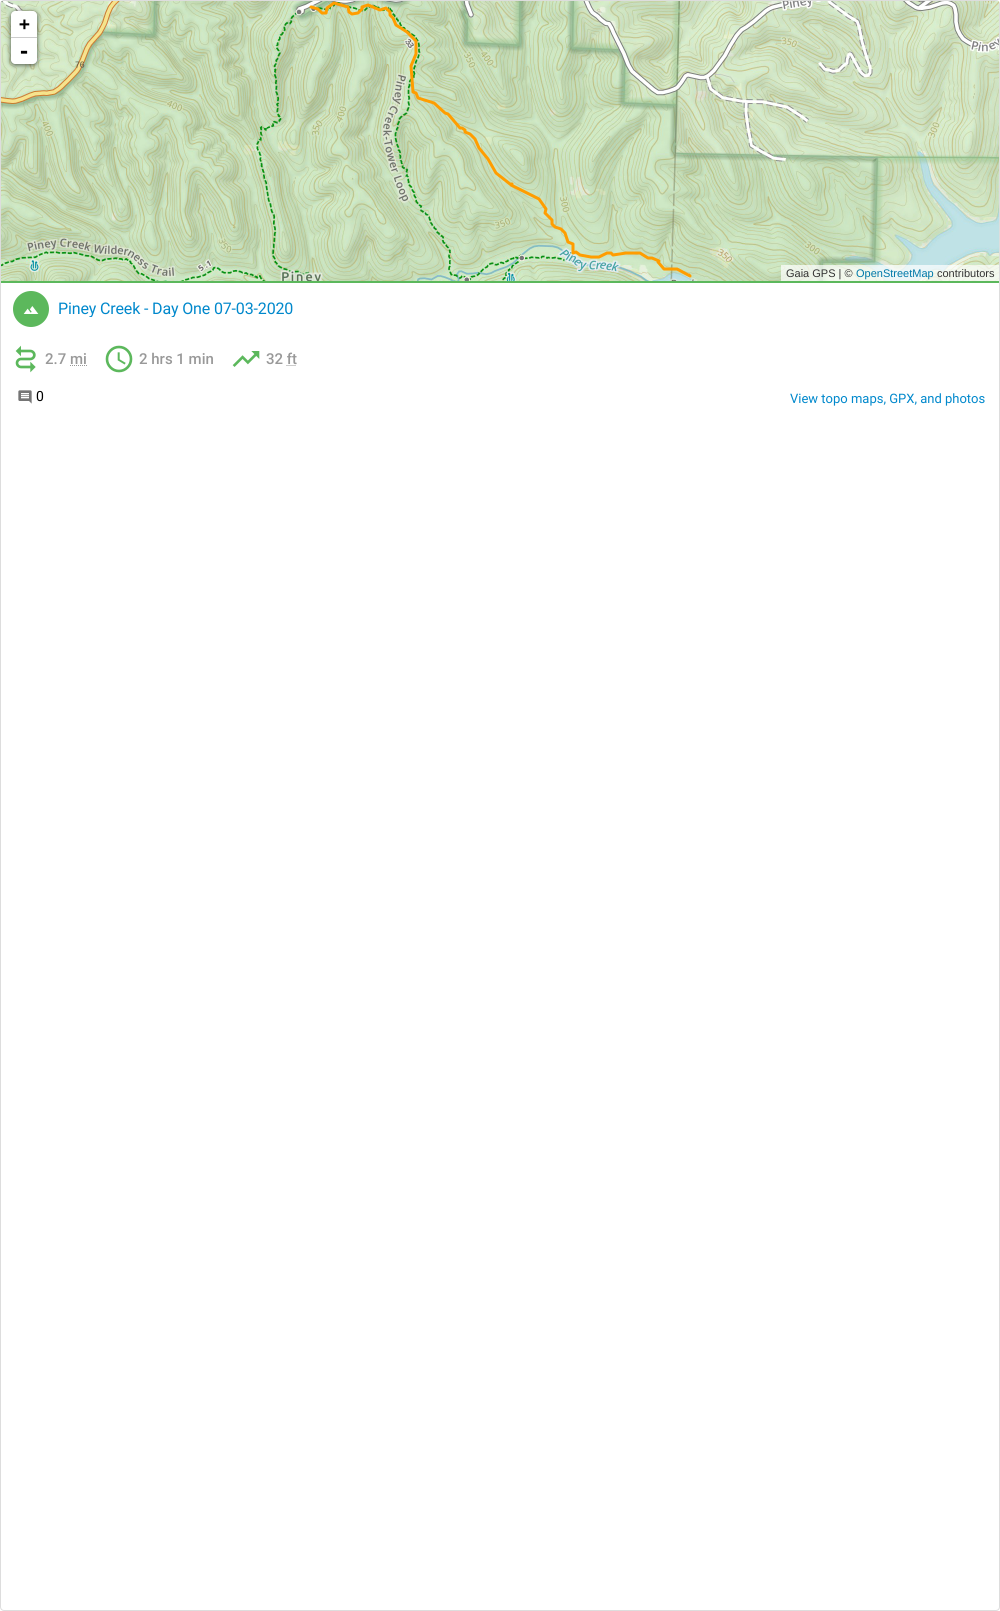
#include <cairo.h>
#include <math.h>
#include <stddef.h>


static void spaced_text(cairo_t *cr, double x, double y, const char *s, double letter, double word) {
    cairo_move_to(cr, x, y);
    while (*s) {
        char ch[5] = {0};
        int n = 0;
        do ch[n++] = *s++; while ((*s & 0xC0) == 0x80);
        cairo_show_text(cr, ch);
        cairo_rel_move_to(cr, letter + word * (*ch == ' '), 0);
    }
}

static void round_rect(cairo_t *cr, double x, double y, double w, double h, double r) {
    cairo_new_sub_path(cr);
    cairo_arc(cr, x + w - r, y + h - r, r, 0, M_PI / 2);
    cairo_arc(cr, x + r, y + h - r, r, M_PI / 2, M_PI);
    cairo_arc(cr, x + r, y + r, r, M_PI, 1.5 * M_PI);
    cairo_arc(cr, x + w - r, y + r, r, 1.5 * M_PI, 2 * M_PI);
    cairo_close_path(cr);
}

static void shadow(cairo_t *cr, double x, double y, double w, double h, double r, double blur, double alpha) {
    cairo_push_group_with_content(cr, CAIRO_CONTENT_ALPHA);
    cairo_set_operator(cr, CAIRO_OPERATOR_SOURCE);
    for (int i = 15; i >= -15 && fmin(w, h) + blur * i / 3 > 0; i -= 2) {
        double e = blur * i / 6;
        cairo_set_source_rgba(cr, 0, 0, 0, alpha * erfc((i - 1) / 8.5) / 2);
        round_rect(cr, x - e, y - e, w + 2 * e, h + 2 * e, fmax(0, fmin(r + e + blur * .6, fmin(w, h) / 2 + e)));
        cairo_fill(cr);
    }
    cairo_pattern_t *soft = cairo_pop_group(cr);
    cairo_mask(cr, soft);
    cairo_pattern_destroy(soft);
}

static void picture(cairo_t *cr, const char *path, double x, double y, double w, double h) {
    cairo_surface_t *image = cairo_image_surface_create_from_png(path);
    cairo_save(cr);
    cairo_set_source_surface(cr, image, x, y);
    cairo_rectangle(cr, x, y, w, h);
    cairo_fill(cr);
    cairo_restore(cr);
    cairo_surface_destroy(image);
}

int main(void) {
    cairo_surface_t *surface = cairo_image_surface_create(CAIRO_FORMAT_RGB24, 1000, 1611);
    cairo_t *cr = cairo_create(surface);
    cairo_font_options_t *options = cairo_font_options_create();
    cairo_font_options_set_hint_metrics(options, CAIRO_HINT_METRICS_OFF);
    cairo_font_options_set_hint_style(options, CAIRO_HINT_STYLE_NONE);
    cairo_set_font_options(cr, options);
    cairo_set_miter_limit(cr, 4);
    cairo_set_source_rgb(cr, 1, 1, 1);
    cairo_paint(cr);
    round_rect(cr, 0.5, 0.5, 999, 1610, 3.5);
    cairo_set_source_rgb(cr, 0.867, 0.867, 0.867);
    cairo_set_line_width(cr, 1);
    cairo_stroke(cr);
    cairo_set_source_rgb(cr, 0.361, 0.722, 0.361);
    cairo_rectangle(cr, 1, 281, 998, 2);
    cairo_fill(cr);
    picture(cr, "img1.png", 1, 1, 120, 255);
    picture(cr, "img2.png", 121, 1, 256, 255);
    picture(cr, "img3.png", 377, 1, 256, 255);
    picture(cr, "img4.png", 633, 1, 256, 255);
    picture(cr, "img5.png", 889, 1, 110, 255);
    picture(cr, "img6.png", 1, 256, 120, 25);
    picture(cr, "img7.png", 121, 256, 256, 25);
    picture(cr, "img8.png", 377, 256, 256, 25);
    picture(cr, "img9.png", 633, 256, 256, 25);
    picture(cr, "img10.png", 889, 256, 110, 25);
    picture(cr, "img11.png", 309, 1, 383, 277);
    cairo_set_source_rgb(cr, 0, 0, 0);
    shadow(cr, 11, 12, 26, 53, 4, 2.5, 0.65);
    cairo_set_source_rgb(cr, 1, 1, 1);
    cairo_new_path(cr);
    cairo_move_to(cr, 15, 11);
    cairo_line_to(cr, 33, 11);
    cairo_curve_to(cr, 35, 11, 37, 13, 37, 15);
    cairo_line_to(cr, 37, 38);
    cairo_line_to(cr, 11, 38);
    cairo_line_to(cr, 11, 15);
    cairo_curve_to(cr, 11, 13, 13, 11, 15, 11);
    cairo_close_path(cr);
    cairo_fill(cr);
    cairo_set_source_rgb(cr, 0.8, 0.8, 0.8);
    cairo_rectangle(cr, 11, 37, 26, 1);
    cairo_fill(cr);
    cairo_select_font_face(cr, "DejaVu Sans Mono", CAIRO_FONT_SLANT_NORMAL, CAIRO_FONT_WEIGHT_BOLD);
    cairo_set_font_size(cr, 18);
    cairo_set_source_rgb(cr, 0, 0, 0);
    cairo_move_to(cr, 19, 30);
    cairo_show_text(cr, "+");
    cairo_set_source_rgb(cr, 1, 1, 1);
    cairo_new_path(cr);
    cairo_move_to(cr, 11, 38);
    cairo_line_to(cr, 37, 38);
    cairo_line_to(cr, 37, 60);
    cairo_curve_to(cr, 37, 62, 35, 64, 33, 64);
    cairo_line_to(cr, 15, 64);
    cairo_curve_to(cr, 13, 64, 11, 62, 11, 60);
    cairo_close_path(cr);
    cairo_fill(cr);
    cairo_set_font_size(cr, 20);
    cairo_set_source_rgb(cr, 0, 0, 0);
    cairo_move_to(cr, 18, 58);
    cairo_show_text(cr, "-");
    cairo_set_source_rgba(cr, 1, 1, 1, 0.7);
    cairo_rectangle(cr, 781, 265, 218, 16);
    cairo_fill(cr);
    cairo_select_font_face(cr, "Liberation Sans", CAIRO_FONT_SLANT_NORMAL, CAIRO_FONT_WEIGHT_NORMAL);
    cairo_set_font_size(cr, 11);
    cairo_set_source_rgb(cr, 0.2, 0.2, 0.2);
    cairo_move_to(cr, 786, 277);
    cairo_show_text(cr, "Gaia GPS | ©");
    cairo_set_source_rgb(cr, 0, 0.471, 0.659);
    cairo_move_to(cr, 856, 277);
    cairo_show_text(cr, "OpenStreetMap");
    cairo_set_source_rgb(cr, 0.2, 0.2, 0.2);
    cairo_move_to(cr, 937, 277);
    cairo_show_text(cr, "contributors");
    cairo_set_source_rgb(cr, 0.361, 0.722, 0.361);
    cairo_new_path(cr);
    cairo_arc(cr, 31, 309, 18, 0, 2 * M_PI);
    cairo_fill(cr);
    picture(cr, "img12.png", 23, 306, 16, 8);
    cairo_save(cr);
    cairo_rectangle(cr, 58, 301, 235, 16);
    cairo_clip(cr);
    cairo_select_font_face(cr, "Roboto", CAIRO_FONT_SLANT_NORMAL, CAIRO_FONT_WEIGHT_NORMAL);
    cairo_set_font_size(cr, 16);
    cairo_set_source_rgb(cr, 0, 0.533, 0.8);
    spaced_text(cr, 58, 314, "Piney Creek - Day One 07-03-2020", -0.15, 0);
    cairo_restore(cr);
    picture(cr, "img13.png", 15, 345, 21, 28);
    cairo_select_font_face(cr, "Roboto Medium", CAIRO_FONT_SLANT_NORMAL, CAIRO_FONT_WEIGHT_NORMAL);
    cairo_set_font_size(cr, 15);
    cairo_set_source_rgb(cr, 0.6, 0.6, 0.6);
    cairo_move_to(cr, 45, 364);
    cairo_show_text(cr, "2.7 mi");
    cairo_new_path(cr);
    cairo_move_to(cr, 70, 365.5);
    cairo_line_to(cr, 87, 365.5);
    cairo_set_dash(cr, (double[]){1, 1}, 2, 0);
    cairo_stroke(cr);
    picture(cr, "img14.png", 105, 345, 28, 28);
    cairo_move_to(cr, 139, 364);
    cairo_show_text(cr, "2 hrs 1 min");
    picture(cr, "img15.png", 232, 351, 28, 16);
    cairo_move_to(cr, 266, 364);
    cairo_show_text(cr, "32 ft");
    cairo_new_path(cr);
    cairo_move_to(cr, 286.5, 365.5);
    cairo_line_to(cr, 296.5, 365.5);
    cairo_stroke(cr);
    picture(cr, "img16.png", 18, 390, 14, 14);
    cairo_select_font_face(cr, "Roboto", CAIRO_FONT_SLANT_NORMAL, CAIRO_FONT_WEIGHT_NORMAL);
    cairo_set_font_size(cr, 14);
    cairo_set_source_rgb(cr, 0, 0, 0);
    cairo_move_to(cr, 36, 401);
    cairo_show_text(cr, "0");
    cairo_set_font_size(cr, 13);
    cairo_set_source_rgb(cr, 0, 0.533, 0.8);
    cairo_move_to(cr, 790, 403);
    cairo_show_text(cr, "View topo maps, GPX, and photos");
    cairo_surface_write_to_png(surface, "page.png");
    cairo_font_options_destroy(options);
    cairo_destroy(cr);
    cairo_surface_destroy(surface);
    return 0;
}
